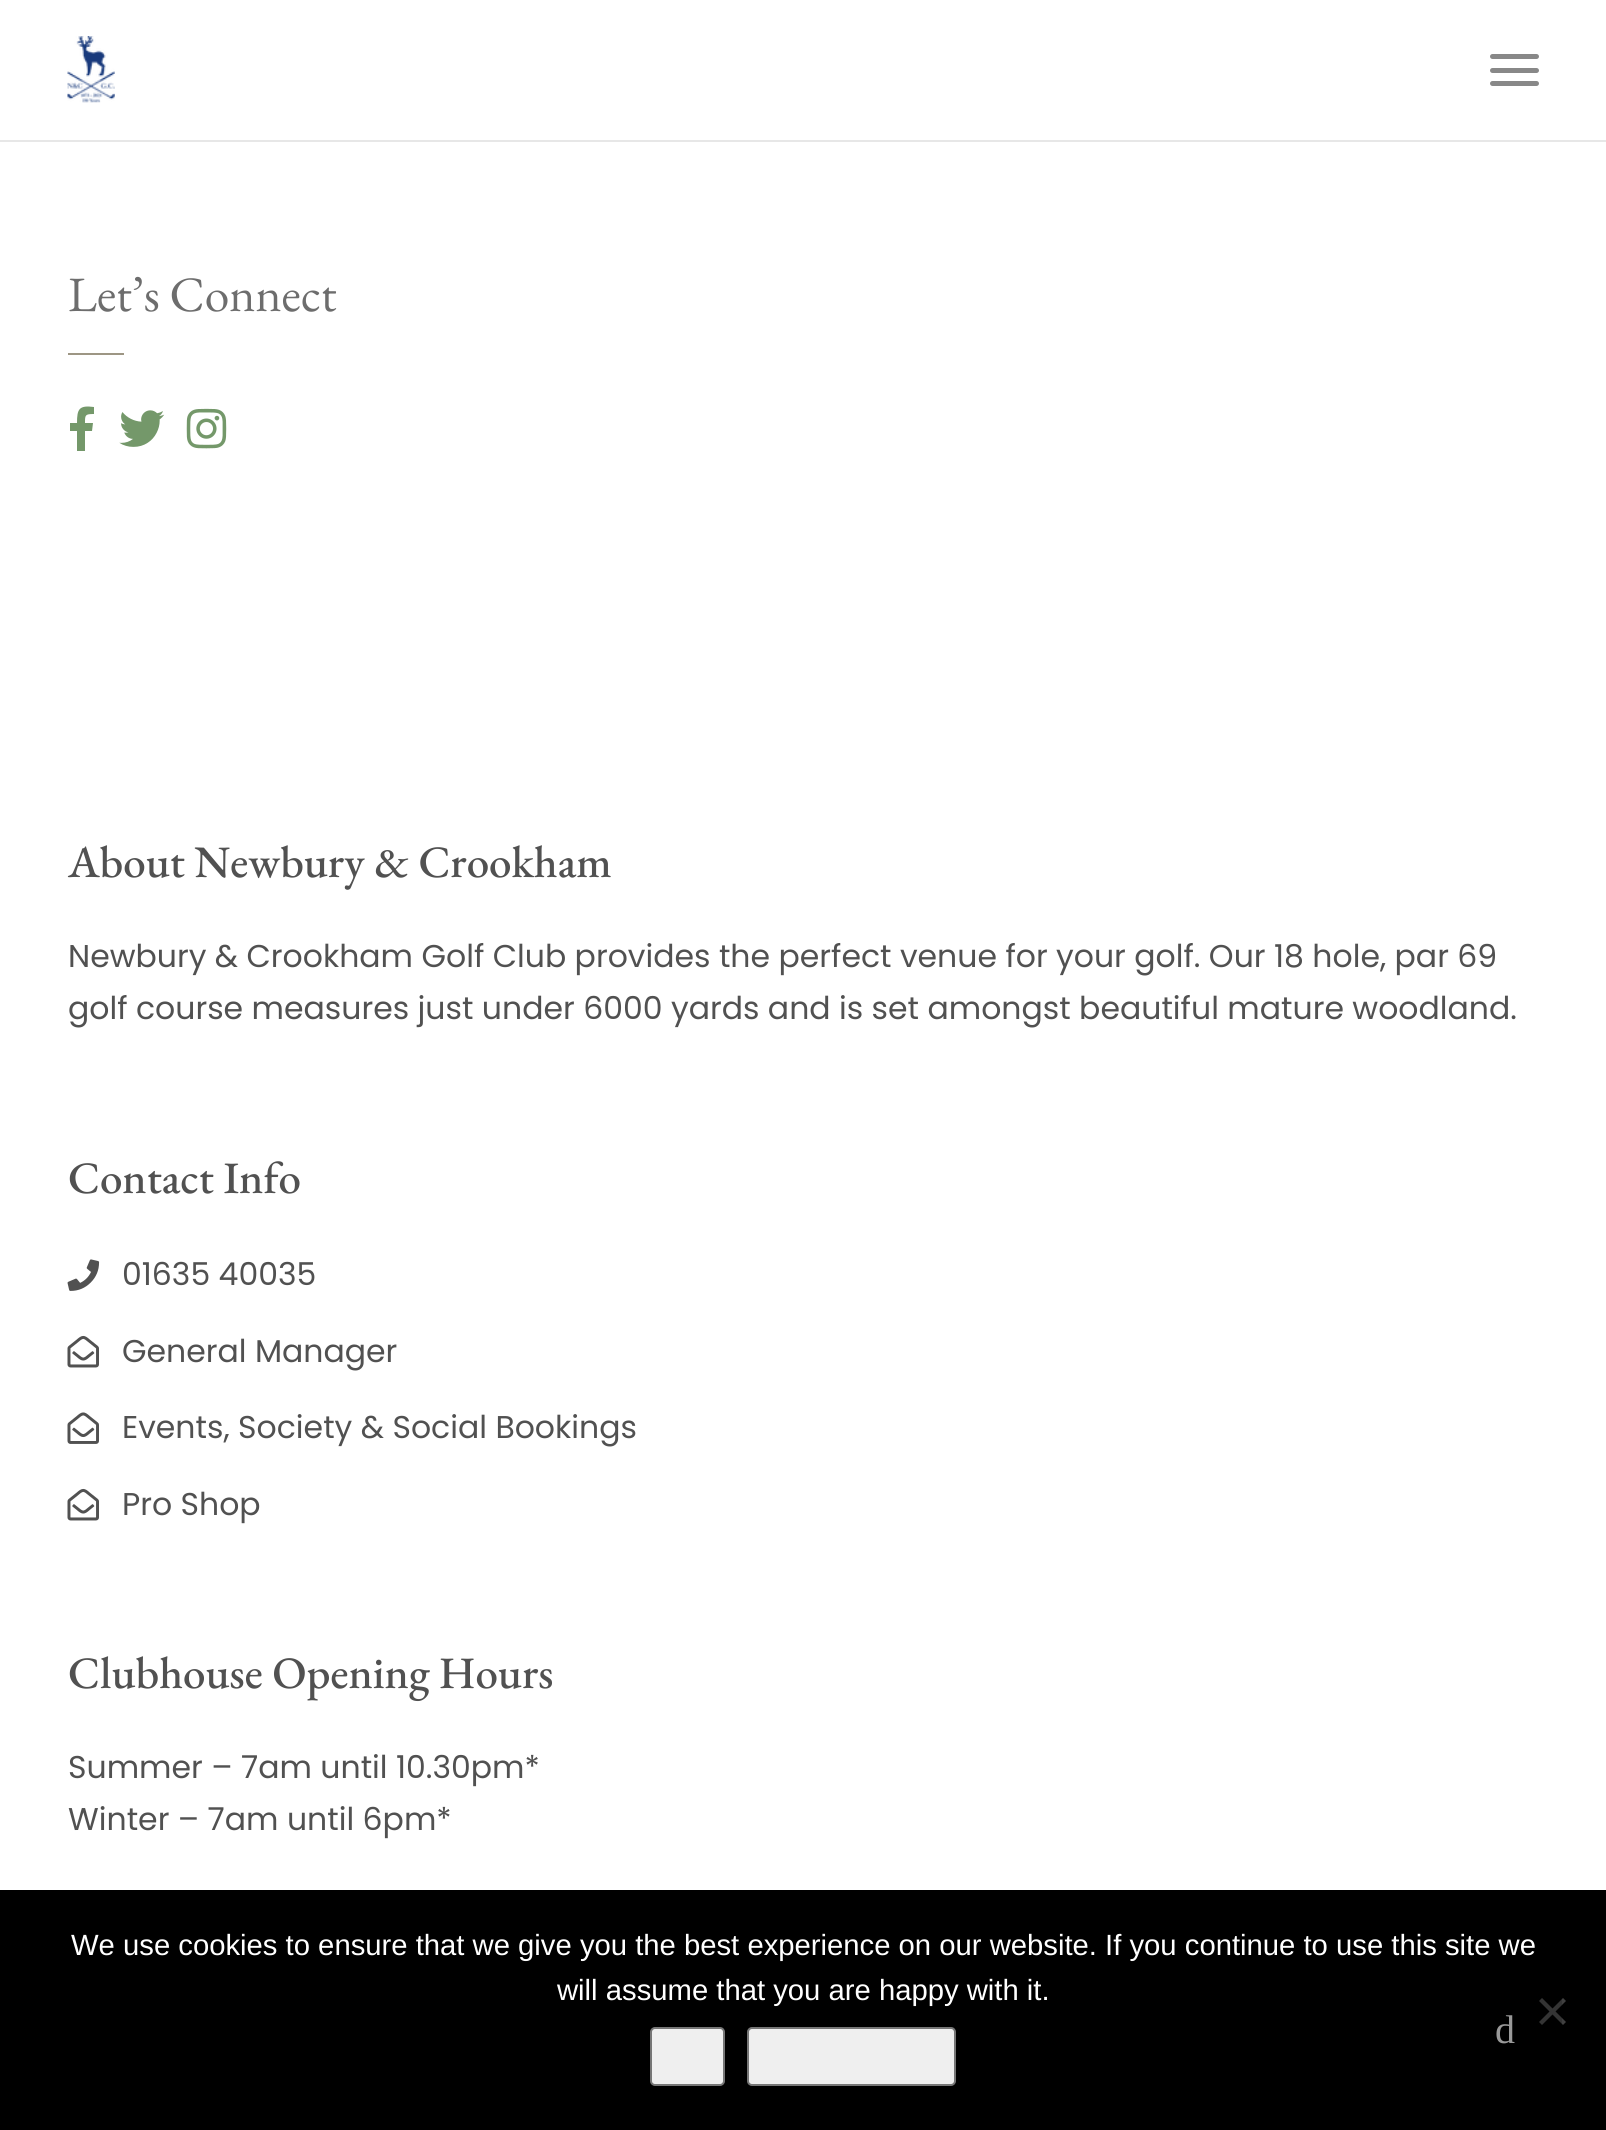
#include <cairo.h>
#include <math.h>
#include <stddef.h>


static void round_rect(cairo_t *cr, double x, double y, double w, double h, double r) {
    cairo_new_sub_path(cr);
    cairo_arc(cr, x + w - r, y + h - r, r, 0, M_PI / 2);
    cairo_arc(cr, x + r, y + h - r, r, M_PI / 2, M_PI);
    cairo_arc(cr, x + r, y + r, r, M_PI, 1.5 * M_PI);
    cairo_arc(cr, x + w - r, y + r, r, 1.5 * M_PI, 2 * M_PI);
    cairo_close_path(cr);
}

static void picture(cairo_t *cr, const char *path, double x, double y, double w, double h) {
    cairo_surface_t *image = cairo_image_surface_create_from_png(path);
    cairo_save(cr);
    cairo_set_source_surface(cr, image, x, y);
    cairo_rectangle(cr, x, y, w, h);
    cairo_fill(cr);
    cairo_restore(cr);
    cairo_surface_destroy(image);
}

int main(void) {
    cairo_surface_t *surface = cairo_image_surface_create(CAIRO_FORMAT_RGB24, 1606, 2130);
    cairo_t *cr = cairo_create(surface);
    cairo_font_options_t *options = cairo_font_options_create();
    cairo_font_options_set_hint_metrics(options, CAIRO_HINT_METRICS_OFF);
    cairo_font_options_set_hint_style(options, CAIRO_HINT_STYLE_NONE);
    cairo_set_font_options(cr, options);
    cairo_set_miter_limit(cr, 4);
    cairo_set_source_rgb(cr, 1, 1, 1);
    cairo_paint(cr);
    cairo_set_source_rgb(cr, 0.906, 0.906, 0.906);
    cairo_rectangle(cr, 0, 140, 1606, 2);
    cairo_fill(cr);
    picture(cr, "img1.png", 67, 36, 48, 67);
    cairo_set_source_rgb(cr, 0.533, 0.533, 0.533);
    round_rect(cr, 1490, 54, 49, 5, 2.5);
    cairo_fill(cr);
    round_rect(cr, 1490, 68, 49, 5, 2.5);
    cairo_fill(cr);
    round_rect(cr, 1490, 81, 49, 5, 2.5);
    cairo_fill(cr);
    cairo_select_font_face(cr, "EB Garamond", CAIRO_FONT_SLANT_NORMAL, CAIRO_FONT_WEIGHT_NORMAL);
    cairo_set_font_size(cr, 49.5);
    cairo_set_source_rgb(cr, 0.427, 0.427, 0.427);
    cairo_move_to(cr, 68, 311);
    cairo_show_text(cr, "Let’s Connect");
    cairo_set_source_rgb(cr, 0.616, 0.588, 0.518);
    cairo_rectangle(cr, 68, 353, 56, 2);
    cairo_fill(cr);
    cairo_set_source_rgb(cr, 0.455, 0.596, 0.416);
    cairo_new_path(cr);
    cairo_move_to(cr, 92, 431);
    cairo_line_to(cr, 85, 431);
    cairo_line_to(cr, 85, 451);
    cairo_line_to(cr, 77, 451);
    cairo_line_to(cr, 77, 431);
    cairo_line_to(cr, 70, 431);
    cairo_line_to(cr, 70, 423);
    cairo_line_to(cr, 77, 423);
    cairo_curve_to(cr, 77, 409, 79, 405, 94, 407);
    cairo_line_to(cr, 94, 414);
    cairo_curve_to(cr, 85, 414, 85, 415, 85, 423);
    cairo_line_to(cr, 93, 423);
    cairo_close_path(cr);
    cairo_fill(cr);
    picture(cr, "img2.png", 119, 410, 46, 37);
    picture(cr, "img3.png", 186, 408, 41, 41);
    cairo_select_font_face(cr, "EB Garamond Medium", CAIRO_FONT_SLANT_NORMAL, CAIRO_FONT_WEIGHT_NORMAL);
    cairo_set_font_size(cr, 45);
    cairo_set_source_rgb(cr, 0.318, 0.318, 0.318);
    cairo_move_to(cr, 68, 877);
    cairo_show_text(cr, "About Newbury & Crookham");
    cairo_select_font_face(cr, "Poppins", CAIRO_FONT_SLANT_NORMAL, CAIRO_FONT_WEIGHT_NORMAL);
    cairo_set_font_size(cr, 31.5);
    cairo_move_to(cr, 68, 967);
    cairo_show_text(cr, "Newbury & Crookham Golf Club provides the perfect venue for your golf. Our 18 hole, par 69");
    cairo_move_to(cr, 68, 1019);
    cairo_show_text(cr, "golf course measures just under 6000 yards and is set amongst beautiful mature woodland.");
    cairo_select_font_face(cr, "EB Garamond Medium", CAIRO_FONT_SLANT_NORMAL, CAIRO_FONT_WEIGHT_NORMAL);
    cairo_set_font_size(cr, 45);
    cairo_move_to(cr, 68, 1193);
    cairo_show_text(cr, "Contact Info");
    picture(cr, "img4.png", 67, 1259, 33, 32);
    cairo_select_font_face(cr, "Poppins", CAIRO_FONT_SLANT_NORMAL, CAIRO_FONT_WEIGHT_NORMAL);
    cairo_set_font_size(cr, 31.5);
    cairo_move_to(cr, 122, 1285);
    cairo_show_text(cr, "01635 40035");
    picture(cr, "img5.png", 67, 1335, 32, 33);
    cairo_move_to(cr, 122, 1362);
    cairo_show_text(cr, "General Manager");
    picture(cr, "img6.png", 67, 1412, 32, 32);
    cairo_move_to(cr, 122, 1438);
    cairo_show_text(cr, "Events, Society & Social Bookings");
    picture(cr, "img5.png", 67, 1488, 32, 33);
    cairo_move_to(cr, 122, 1515);
    cairo_show_text(cr, "Pro Shop");
    cairo_select_font_face(cr, "EB Garamond Medium", CAIRO_FONT_SLANT_NORMAL, CAIRO_FONT_WEIGHT_NORMAL);
    cairo_set_font_size(cr, 45);
    cairo_move_to(cr, 68, 1688);
    cairo_show_text(cr, "Clubhouse Opening Hours");
    cairo_select_font_face(cr, "Poppins", CAIRO_FONT_SLANT_NORMAL, CAIRO_FONT_WEIGHT_NORMAL);
    cairo_set_font_size(cr, 31.5);
    cairo_move_to(cr, 68, 1778);
    cairo_show_text(cr, "Summer – 7am until 10.30pm*");
    cairo_move_to(cr, 68, 1830);
    cairo_show_text(cr, "Winter – 7am until 6pm*");
    cairo_set_source_rgb(cr, 0, 0, 0);
    cairo_rectangle(cr, 0, 1890, 1606, 240);
    cairo_fill(cr);
    cairo_select_font_face(cr, "Liberation Sans", CAIRO_FONT_SLANT_NORMAL, CAIRO_FONT_WEIGHT_NORMAL);
    cairo_set_font_size(cr, 29.25);
    cairo_set_source_rgb(cr, 1, 1, 1);
    cairo_move_to(cr, 71, 1955);
    cairo_show_text(cr, "We use cookies to ensure that we give you the best experience on our website. If you continue to use this site we");
    cairo_move_to(cr, 557, 2000);
    cairo_show_text(cr, "will assume that you are happy with it.");
    cairo_set_source_rgb(cr, 0.251, 0.251, 0.251);
    cairo_new_path(cr);
    cairo_move_to(cr, 1563, 1998);
    cairo_line_to(cr, 1566, 2001);
    cairo_line_to(cr, 1542, 2025);
    cairo_line_to(cr, 1539, 2022);
    cairo_close_path(cr);
    cairo_fill(cr);
    cairo_new_path(cr);
    cairo_move_to(cr, 1539, 2001);
    cairo_line_to(cr, 1542, 1998);
    cairo_line_to(cr, 1566, 2022);
    cairo_line_to(cr, 1563, 2025);
    cairo_close_path(cr);
    cairo_fill(cr);
    cairo_set_source_rgb(cr, 0.937, 0.937, 0.937);
    round_rect(cr, 651, 2028, 73, 57, 4);
    cairo_fill_preserve(cr);
    cairo_set_source_rgb(cr, 0.463, 0.463, 0.463);
    cairo_stroke(cr);
    cairo_set_source_rgb(cr, 0.937, 0.937, 0.937);
    round_rect(cr, 748, 2028, 207, 57, 4);
    cairo_fill_preserve(cr);
    cairo_set_source_rgb(cr, 0.463, 0.463, 0.463);
    cairo_stroke(cr);
    cairo_set_source_rgba(cr, 0, 0, 0, 0.18);
    cairo_rectangle(cr, 1539, 1998, 23, 27);
    cairo_fill(cr);
    cairo_select_font_face(cr, "Liberation Serif", CAIRO_FONT_SLANT_NORMAL, CAIRO_FONT_WEIGHT_NORMAL);
    cairo_set_font_size(cr, 40);
    cairo_set_source_rgb(cr, 0.6, 0.6, 0.6);
    cairo_move_to(cr, 1495, 2043);
    cairo_show_text(cr, "d");
    cairo_surface_write_to_png(surface, "page.png");
    cairo_font_options_destroy(options);
    cairo_destroy(cr);
    cairo_surface_destroy(surface);
    return 0;
}
